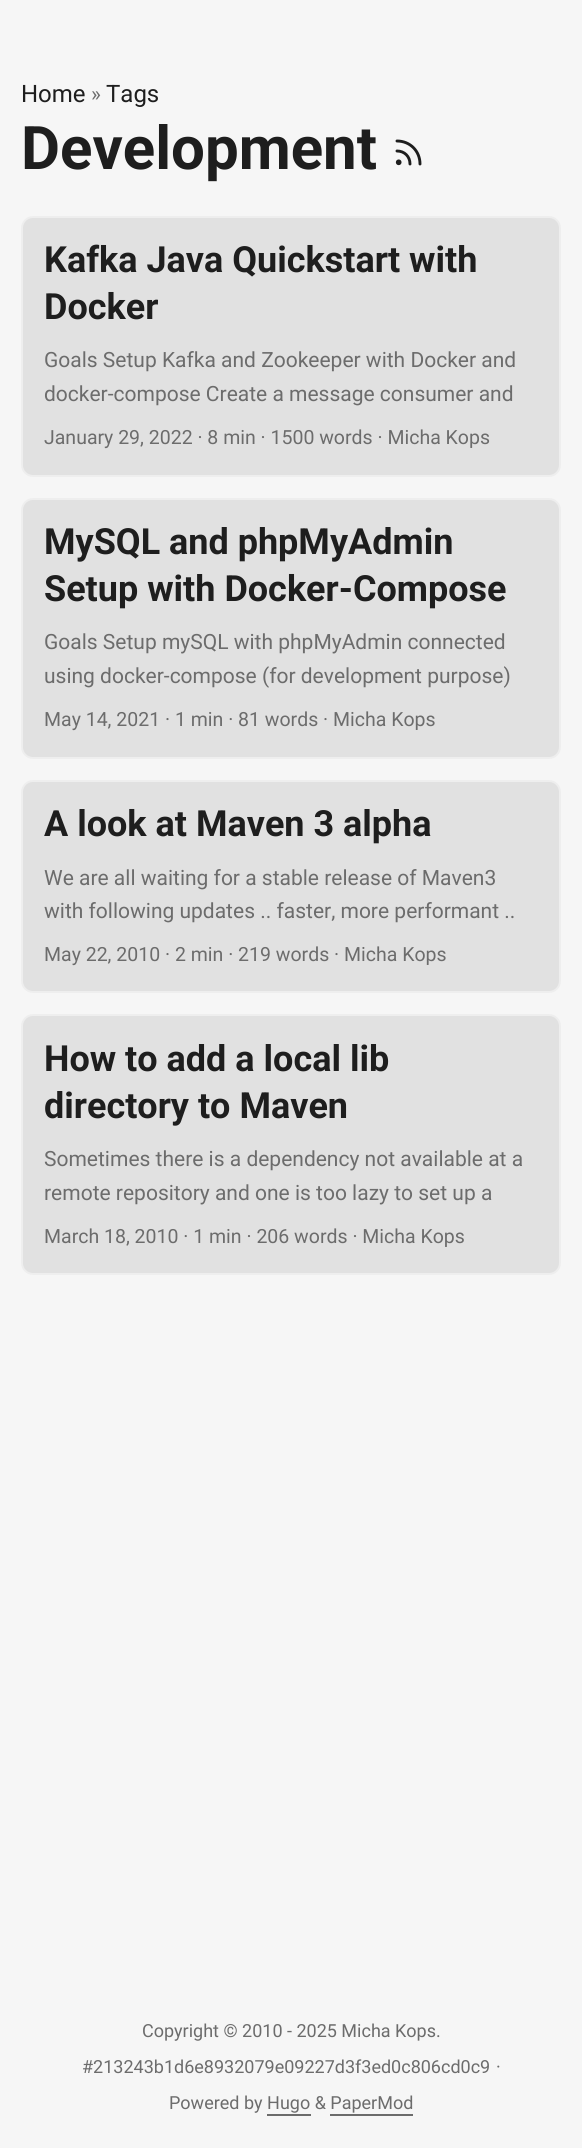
#include <cairo.h>
#include <math.h>
#include <stddef.h>


static void round_rect(cairo_t *cr, double x, double y, double w, double h, double r) {
    cairo_new_sub_path(cr);
    cairo_arc(cr, x + w - r, y + h - r, r, 0, M_PI / 2);
    cairo_arc(cr, x + r, y + h - r, r, M_PI / 2, M_PI);
    cairo_arc(cr, x + r, y + r, r, M_PI, 1.5 * M_PI);
    cairo_arc(cr, x + w - r, y + r, r, 1.5 * M_PI, 2 * M_PI);
    cairo_close_path(cr);
}

int main(void) {
    cairo_surface_t *surface = cairo_image_surface_create(CAIRO_FORMAT_RGB24, 582, 2148);
    cairo_t *cr = cairo_create(surface);
    cairo_font_options_t *options = cairo_font_options_create();
    cairo_font_options_set_hint_metrics(options, CAIRO_HINT_METRICS_OFF);
    cairo_font_options_set_hint_style(options, CAIRO_HINT_STYLE_NONE);
    cairo_set_font_options(cr, options);
    cairo_set_miter_limit(cr, 4);
    cairo_set_source_rgb(cr, 0.961, 0.961, 0.961);
    cairo_paint(cr);
    cairo_select_font_face(cr, "Roboto", CAIRO_FONT_SLANT_NORMAL, CAIRO_FONT_WEIGHT_NORMAL);
    cairo_set_font_size(cr, 24);
    cairo_set_source_rgb(cr, 0.118, 0.118, 0.118);
    cairo_move_to(cr, 21, 102);
    cairo_show_text(cr, "Home");
    cairo_set_font_size(cr, 21);
    cairo_set_source_rgb(cr, 0.424, 0.424, 0.424);
    cairo_move_to(cr, 91, 101);
    cairo_show_text(cr, "»");
    cairo_set_font_size(cr, 24);
    cairo_set_source_rgb(cr, 0.118, 0.118, 0.118);
    cairo_move_to(cr, 106, 102);
    cairo_show_text(cr, "Tags");
    cairo_select_font_face(cr, "Roboto", CAIRO_FONT_SLANT_NORMAL, CAIRO_FONT_WEIGHT_BOLD);
    cairo_set_font_size(cr, 60);
    cairo_move_to(cr, 21, 169);
    cairo_show_text(cr, "Development");
    cairo_new_path(cr);
    cairo_move_to(cr, 397, 151);
    cairo_curve_to(cr, 404.5, 151, 410, 156.5, 410, 164);
    cairo_move_to(cr, 397, 141);
    cairo_curve_to(cr, 410, 141, 420, 151, 420, 164);
    cairo_set_line_width(cr, 2.9);
    cairo_set_line_cap(cr, CAIRO_LINE_CAP_ROUND);
    cairo_set_line_join(cr, CAIRO_LINE_JOIN_ROUND);
    cairo_stroke(cr);
    cairo_arc(cr, 398.7, 162.3, 1.4, 0, 2 * M_PI);
    cairo_set_line_cap(cr, CAIRO_LINE_CAP_BUTT);
    cairo_set_line_join(cr, CAIRO_LINE_JOIN_MITER);
    cairo_stroke(cr);
    cairo_set_source_rgb(cr, 0.882, 0.882, 0.882);
    round_rect(cr, 22, 217, 538, 259, 11);
    cairo_fill_preserve(cr);
    cairo_set_source_rgb(cr, 0.933, 0.933, 0.933);
    cairo_set_line_width(cr, 2);
    cairo_stroke(cr);
    cairo_set_font_size(cr, 36);
    cairo_set_source_rgb(cr, 0.118, 0.118, 0.118);
    cairo_move_to(cr, 44, 272);
    cairo_show_text(cr, "Kafka Java Quickstart with");
    cairo_move_to(cr, 44, 319);
    cairo_show_text(cr, "Docker");
    cairo_select_font_face(cr, "Roboto", CAIRO_FONT_SLANT_NORMAL, CAIRO_FONT_WEIGHT_NORMAL);
    cairo_set_font_size(cr, 21);
    cairo_set_source_rgb(cr, 0.424, 0.424, 0.424);
    cairo_move_to(cr, 44, 367);
    cairo_show_text(cr, "Goals Setup Kafka and Zookeeper with Docker and");
    cairo_move_to(cr, 44, 401);
    cairo_show_text(cr, "docker-compose Create a message consumer and");
    cairo_set_font_size(cr, 19.5);
    cairo_move_to(cr, 44, 444);
    cairo_show_text(cr, "January 29, 2022 · 8 min · 1500 words · Micha Kops");
    cairo_set_source_rgb(cr, 0.882, 0.882, 0.882);
    round_rect(cr, 22, 499, 538, 259, 11);
    cairo_fill_preserve(cr);
    cairo_set_source_rgb(cr, 0.933, 0.933, 0.933);
    cairo_stroke(cr);
    cairo_select_font_face(cr, "Roboto", CAIRO_FONT_SLANT_NORMAL, CAIRO_FONT_WEIGHT_BOLD);
    cairo_set_font_size(cr, 36);
    cairo_set_source_rgb(cr, 0.118, 0.118, 0.118);
    cairo_move_to(cr, 44, 554);
    cairo_show_text(cr, "MySQL and phpMyAdmin");
    cairo_move_to(cr, 44, 601);
    cairo_show_text(cr, "Setup with Docker-Compose");
    cairo_select_font_face(cr, "Roboto", CAIRO_FONT_SLANT_NORMAL, CAIRO_FONT_WEIGHT_NORMAL);
    cairo_set_font_size(cr, 21);
    cairo_set_source_rgb(cr, 0.424, 0.424, 0.424);
    cairo_move_to(cr, 44, 649);
    cairo_show_text(cr, "Goals Setup mySQL with phpMyAdmin connected");
    cairo_move_to(cr, 44, 683);
    cairo_show_text(cr, "using docker-compose (for development purpose)");
    cairo_set_font_size(cr, 19.5);
    cairo_move_to(cr, 44, 726);
    cairo_show_text(cr, "May 14, 2021 · 1 min · 81 words · Micha Kops");
    cairo_set_source_rgb(cr, 0.882, 0.882, 0.882);
    round_rect(cr, 22, 781, 538, 211, 11);
    cairo_fill_preserve(cr);
    cairo_set_source_rgb(cr, 0.933, 0.933, 0.933);
    cairo_stroke(cr);
    cairo_select_font_face(cr, "Roboto", CAIRO_FONT_SLANT_NORMAL, CAIRO_FONT_WEIGHT_BOLD);
    cairo_set_font_size(cr, 36);
    cairo_set_source_rgb(cr, 0.118, 0.118, 0.118);
    cairo_move_to(cr, 44, 836);
    cairo_show_text(cr, "A look at Maven 3 alpha");
    cairo_select_font_face(cr, "Roboto", CAIRO_FONT_SLANT_NORMAL, CAIRO_FONT_WEIGHT_NORMAL);
    cairo_set_font_size(cr, 21);
    cairo_set_source_rgb(cr, 0.424, 0.424, 0.424);
    cairo_move_to(cr, 44, 885);
    cairo_show_text(cr, "We are all waiting for a stable release of Maven3");
    cairo_move_to(cr, 44, 918);
    cairo_show_text(cr, "with following updates .. faster, more performant ..");
    cairo_set_font_size(cr, 19.5);
    cairo_move_to(cr, 44, 961);
    cairo_show_text(cr, "May 22, 2010 · 2 min · 219 words · Micha Kops");
    cairo_set_source_rgb(cr, 0.882, 0.882, 0.882);
    round_rect(cr, 22, 1015, 538, 259, 11);
    cairo_fill_preserve(cr);
    cairo_set_source_rgb(cr, 0.933, 0.933, 0.933);
    cairo_stroke(cr);
    cairo_select_font_face(cr, "Roboto", CAIRO_FONT_SLANT_NORMAL, CAIRO_FONT_WEIGHT_BOLD);
    cairo_set_font_size(cr, 36);
    cairo_set_source_rgb(cr, 0.118, 0.118, 0.118);
    cairo_move_to(cr, 44, 1071);
    cairo_show_text(cr, "How to add a local lib");
    cairo_move_to(cr, 44, 1118);
    cairo_show_text(cr, "directory to Maven");
    cairo_select_font_face(cr, "Roboto", CAIRO_FONT_SLANT_NORMAL, CAIRO_FONT_WEIGHT_NORMAL);
    cairo_set_font_size(cr, 21);
    cairo_set_source_rgb(cr, 0.424, 0.424, 0.424);
    cairo_move_to(cr, 44, 1166);
    cairo_show_text(cr, "Sometimes there is a dependency not available at a");
    cairo_move_to(cr, 44, 1200);
    cairo_show_text(cr, "remote repository and one is too lazy to set up a");
    cairo_set_font_size(cr, 19.5);
    cairo_move_to(cr, 44, 1243);
    cairo_show_text(cr, "March 18, 2010 · 1 min · 206 words · Micha Kops");
    cairo_set_font_size(cr, 18);
    cairo_move_to(cr, 142, 2037);
    cairo_show_text(cr, "Copyright © 2010 - 2025 Micha Kops.");
    cairo_move_to(cr, 82, 2073);
    cairo_show_text(cr, "#213243b1d6e8932079e09227d3f3ed0c806cd0c9");
    cairo_move_to(cr, 496, 2073);
    cairo_show_text(cr, "·");
    cairo_move_to(cr, 169, 2109);
    cairo_show_text(cr, "Powered by Hugo & PaperMod");
    cairo_rectangle(cr, 267, 2114, 44, 2);
    cairo_fill(cr);
    cairo_rectangle(cr, 330, 2114, 83, 2);
    cairo_fill(cr);
    cairo_surface_write_to_png(surface, "page.png");
    cairo_font_options_destroy(options);
    cairo_destroy(cr);
    cairo_surface_destroy(surface);
    return 0;
}
